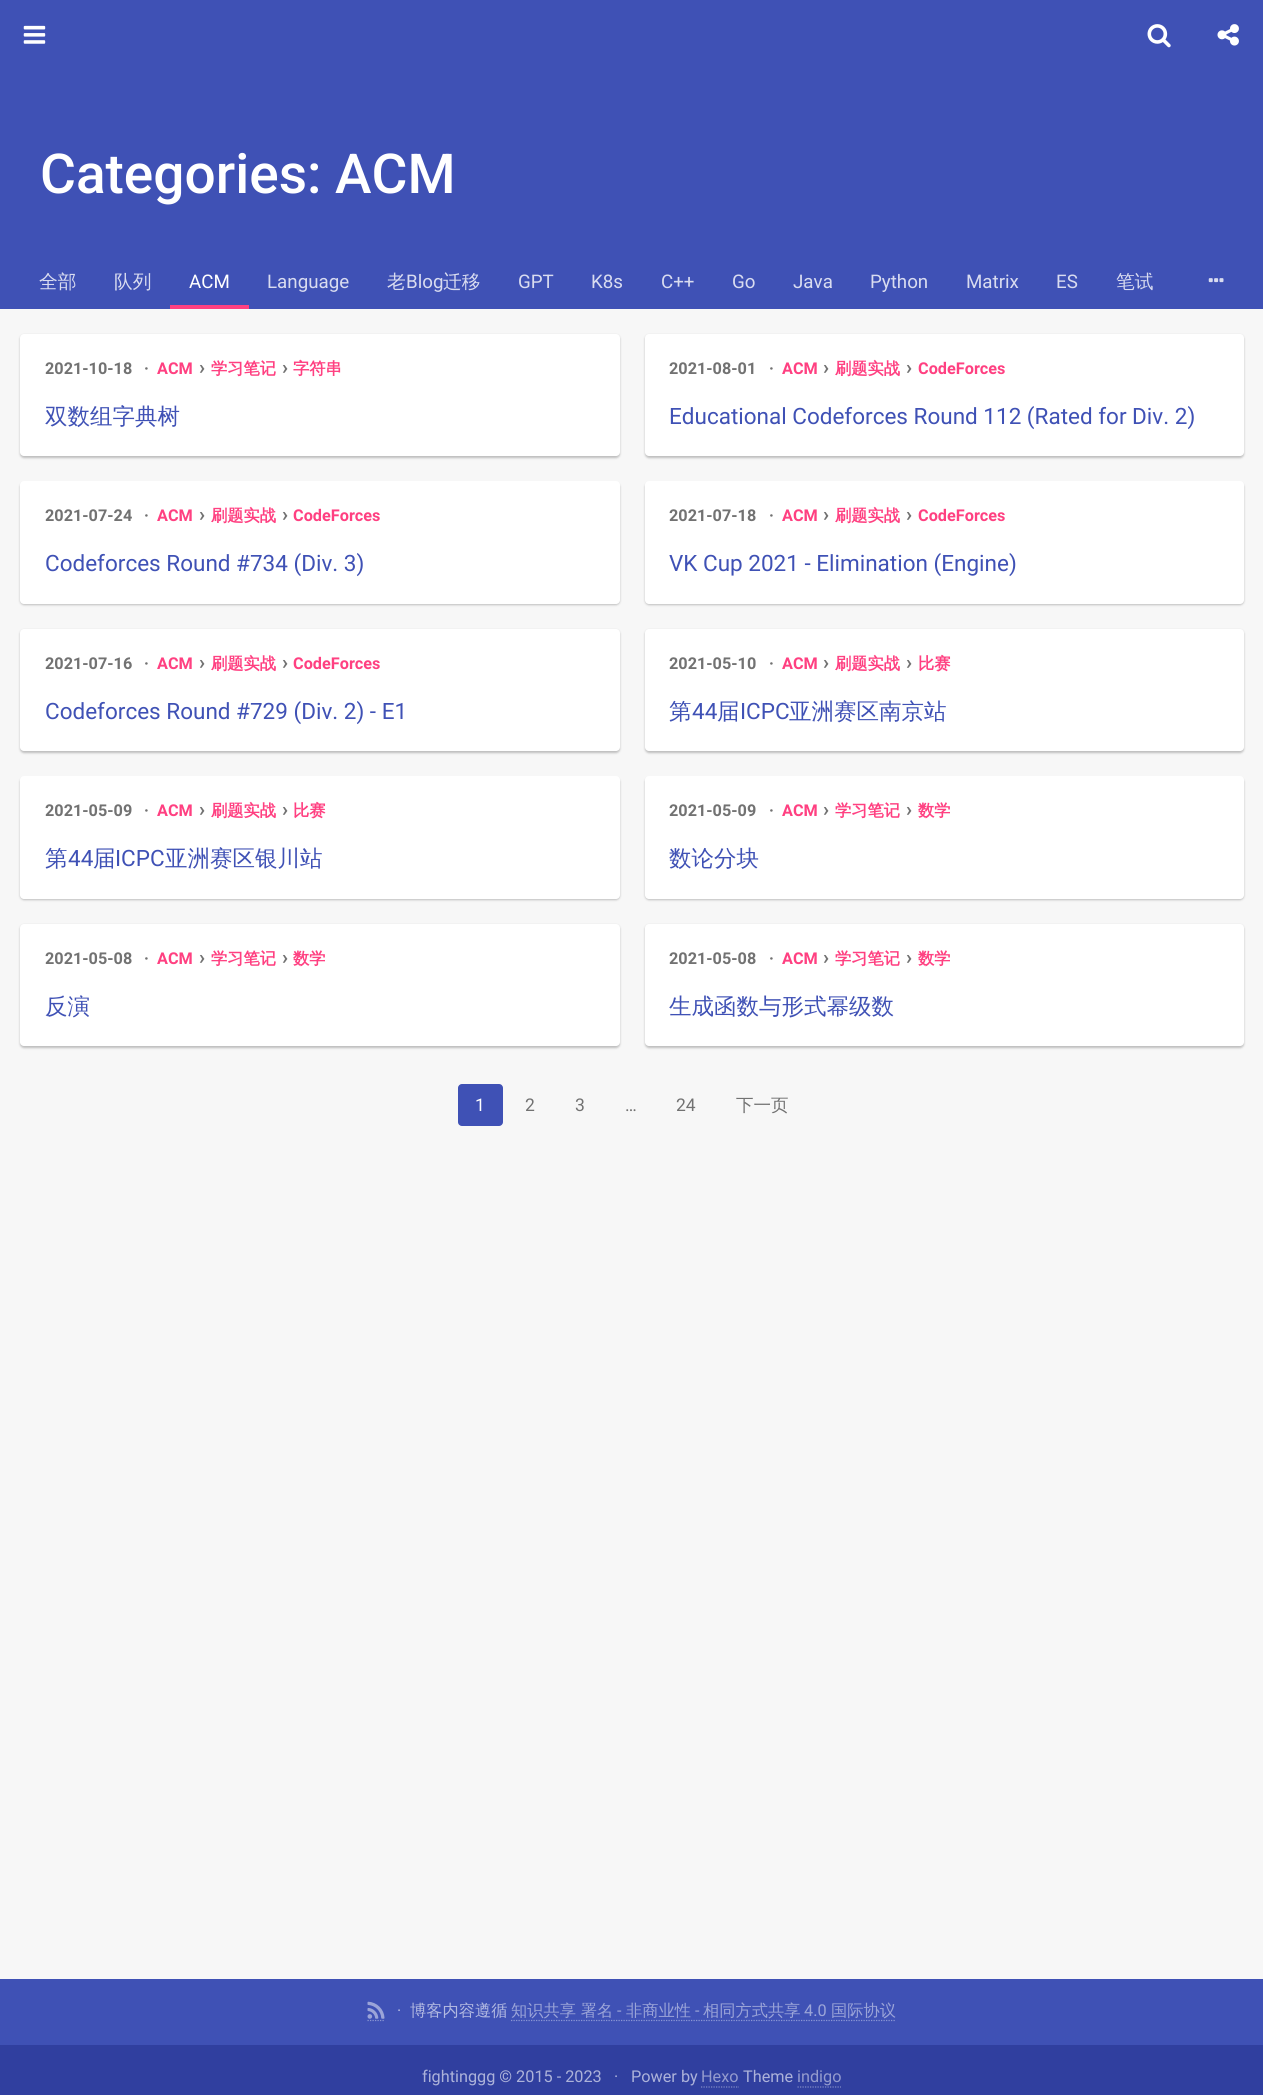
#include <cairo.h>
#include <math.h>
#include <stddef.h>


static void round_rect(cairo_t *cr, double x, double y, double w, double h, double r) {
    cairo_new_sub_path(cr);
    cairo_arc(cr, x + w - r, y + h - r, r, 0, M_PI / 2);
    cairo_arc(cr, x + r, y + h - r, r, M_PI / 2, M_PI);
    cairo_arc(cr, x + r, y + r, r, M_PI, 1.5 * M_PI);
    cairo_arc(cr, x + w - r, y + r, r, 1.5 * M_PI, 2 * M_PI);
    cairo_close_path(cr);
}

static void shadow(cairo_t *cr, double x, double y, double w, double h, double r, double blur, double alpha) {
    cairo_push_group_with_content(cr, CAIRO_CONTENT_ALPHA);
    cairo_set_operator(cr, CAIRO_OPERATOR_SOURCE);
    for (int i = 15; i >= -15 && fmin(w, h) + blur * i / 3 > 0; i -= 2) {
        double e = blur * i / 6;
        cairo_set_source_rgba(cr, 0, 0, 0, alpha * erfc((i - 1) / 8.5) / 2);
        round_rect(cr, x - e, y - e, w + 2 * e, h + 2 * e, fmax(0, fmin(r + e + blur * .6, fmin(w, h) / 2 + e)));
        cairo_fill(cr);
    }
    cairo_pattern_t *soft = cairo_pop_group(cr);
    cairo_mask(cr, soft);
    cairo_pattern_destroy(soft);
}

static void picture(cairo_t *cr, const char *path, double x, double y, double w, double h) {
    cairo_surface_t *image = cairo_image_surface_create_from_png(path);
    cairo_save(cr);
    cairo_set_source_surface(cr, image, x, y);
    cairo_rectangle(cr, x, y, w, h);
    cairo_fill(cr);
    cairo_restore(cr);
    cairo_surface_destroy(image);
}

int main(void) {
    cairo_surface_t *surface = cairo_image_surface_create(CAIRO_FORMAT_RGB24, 1263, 2095);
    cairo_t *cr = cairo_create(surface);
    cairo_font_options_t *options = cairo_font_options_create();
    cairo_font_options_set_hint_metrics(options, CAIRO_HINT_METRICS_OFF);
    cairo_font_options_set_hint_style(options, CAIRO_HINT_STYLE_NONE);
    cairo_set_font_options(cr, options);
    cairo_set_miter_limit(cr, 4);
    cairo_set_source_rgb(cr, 0.965, 0.965, 0.965);
    cairo_paint(cr);
    cairo_set_source_rgb(cr, 0.247, 0.318, 0.71);
    cairo_rectangle(cr, 0, 0, 1263, 309);
    cairo_fill(cr);
    picture(cr, "img1.png", 23, 25, 23, 19);
    picture(cr, "img2.png", 1147, 24, 24, 24);
    picture(cr, "img3.png", 1217, 24, 22, 22);
    cairo_select_font_face(cr, "Roboto Medium", CAIRO_FONT_SLANT_NORMAL, CAIRO_FONT_WEIGHT_NORMAL);
    cairo_set_font_size(cr, 55);
    cairo_set_source_rgb(cr, 1, 1, 1);
    cairo_move_to(cr, 40, 193);
    cairo_show_text(cr, "Categories: ACM");
    cairo_select_font_face(cr, "WenQuanYi Zen Hei Medium", CAIRO_FONT_SLANT_NORMAL, CAIRO_FONT_WEIGHT_NORMAL);
    cairo_set_font_size(cr, 18.75);
    cairo_set_source_rgb(cr, 0.851, 0.863, 0.941);
    cairo_move_to(cr, 39, 288);
    cairo_show_text(cr, "全部");
    cairo_move_to(cr, 114, 288);
    cairo_show_text(cr, "队列");
    cairo_select_font_face(cr, "Roboto", CAIRO_FONT_SLANT_NORMAL, CAIRO_FONT_WEIGHT_NORMAL);
    cairo_set_source_rgb(cr, 1, 1, 1);
    cairo_move_to(cr, 189, 288);
    cairo_show_text(cr, "ACM");
    cairo_set_source_rgb(cr, 1, 0.251, 0.506);
    cairo_rectangle(cr, 170, 305, 79, 4);
    cairo_fill(cr);
    cairo_set_source_rgb(cr, 0.851, 0.863, 0.941);
    cairo_move_to(cr, 267, 288);
    cairo_show_text(cr, "Language");
    cairo_select_font_face(cr, "WenQuanYi Zen Hei Medium", CAIRO_FONT_SLANT_NORMAL, CAIRO_FONT_WEIGHT_NORMAL);
    cairo_move_to(cr, 387, 288);
    cairo_show_text(cr, "老");
    cairo_select_font_face(cr, "Roboto", CAIRO_FONT_SLANT_NORMAL, CAIRO_FONT_WEIGHT_NORMAL);
    cairo_move_to(cr, 406, 288);
    cairo_show_text(cr, "Blog");
    cairo_select_font_face(cr, "WenQuanYi Zen Hei Medium", CAIRO_FONT_SLANT_NORMAL, CAIRO_FONT_WEIGHT_NORMAL);
    cairo_move_to(cr, 443, 288);
    cairo_show_text(cr, "迁移");
    cairo_select_font_face(cr, "Roboto", CAIRO_FONT_SLANT_NORMAL, CAIRO_FONT_WEIGHT_NORMAL);
    cairo_move_to(cr, 518, 288);
    cairo_show_text(cr, "GPT");
    cairo_move_to(cr, 591, 288);
    cairo_show_text(cr, "K8s");
    cairo_move_to(cr, 661, 288);
    cairo_show_text(cr, "C++");
    cairo_move_to(cr, 732, 288);
    cairo_show_text(cr, "Go");
    cairo_move_to(cr, 793, 288);
    cairo_show_text(cr, "Java");
    cairo_move_to(cr, 870, 288);
    cairo_show_text(cr, "Python");
    cairo_move_to(cr, 966, 288);
    cairo_show_text(cr, "Matrix");
    cairo_move_to(cr, 1056, 288);
    cairo_show_text(cr, "ES");
    cairo_select_font_face(cr, "WenQuanYi Zen Hei Medium", CAIRO_FONT_SLANT_NORMAL, CAIRO_FONT_WEIGHT_NORMAL);
    cairo_move_to(cr, 1116, 288);
    cairo_show_text(cr, "笔试");
    picture(cr, "img4.png", 1208, 278, 16, 5);
    cairo_set_source_rgb(cr, 0.592, 0.592, 0.592);
    shadow(cr, 20, 335, 600, 123, 4, 1, 0.58);
    cairo_set_source_rgb(cr, 1, 1, 1);
    round_rect(cr, 20, 334, 600, 122, 4);
    cairo_fill(cr);
    cairo_select_font_face(cr, "Roboto", CAIRO_FONT_SLANT_NORMAL, CAIRO_FONT_WEIGHT_BOLD);
    cairo_set_font_size(cr, 16.25);
    cairo_set_source_rgb(cr, 0.447, 0.447, 0.447);
    cairo_move_to(cr, 45, 374);
    cairo_show_text(cr, "2021-10-18");
    cairo_move_to(cr, 144, 374);
    cairo_show_text(cr, "·");
    cairo_set_source_rgb(cr, 1, 0.251, 0.506);
    cairo_move_to(cr, 157, 374);
    cairo_show_text(cr, "ACM");
    cairo_set_font_size(cr, 20);
    cairo_set_source_rgb(cr, 0.447, 0.447, 0.447);
    cairo_move_to(cr, 199, 374);
    cairo_show_text(cr, "›");
    cairo_select_font_face(cr, "WenQuanYi Zen Hei", CAIRO_FONT_SLANT_NORMAL, CAIRO_FONT_WEIGHT_BOLD);
    cairo_set_font_size(cr, 16.25);
    cairo_set_source_rgb(cr, 1, 0.251, 0.506);
    cairo_move_to(cr, 211, 374);
    cairo_show_text(cr, "学习笔记");
    cairo_select_font_face(cr, "Roboto", CAIRO_FONT_SLANT_NORMAL, CAIRO_FONT_WEIGHT_BOLD);
    cairo_set_font_size(cr, 20);
    cairo_set_source_rgb(cr, 0.447, 0.447, 0.447);
    cairo_move_to(cr, 282, 374);
    cairo_show_text(cr, "›");
    cairo_select_font_face(cr, "WenQuanYi Zen Hei", CAIRO_FONT_SLANT_NORMAL, CAIRO_FONT_WEIGHT_BOLD);
    cairo_set_font_size(cr, 16.25);
    cairo_set_source_rgb(cr, 1, 0.251, 0.506);
    cairo_move_to(cr, 293, 374);
    cairo_show_text(cr, "字符串");
    cairo_select_font_face(cr, "WenQuanYi Zen Hei Medium", CAIRO_FONT_SLANT_NORMAL, CAIRO_FONT_WEIGHT_NORMAL);
    cairo_set_font_size(cr, 22.5);
    cairo_set_source_rgb(cr, 0.247, 0.318, 0.71);
    cairo_move_to(cr, 45, 424);
    cairo_show_text(cr, "双数组字典树");
    cairo_set_source_rgb(cr, 0.592, 0.592, 0.592);
    shadow(cr, 645, 335, 599, 123, 4, 1, 0.58);
    cairo_set_source_rgb(cr, 1, 1, 1);
    round_rect(cr, 645, 334, 599, 122, 4);
    cairo_fill(cr);
    cairo_select_font_face(cr, "Roboto", CAIRO_FONT_SLANT_NORMAL, CAIRO_FONT_WEIGHT_BOLD);
    cairo_set_font_size(cr, 16.25);
    cairo_set_source_rgb(cr, 0.447, 0.447, 0.447);
    cairo_move_to(cr, 669, 374);
    cairo_show_text(cr, "2021-08-01");
    cairo_move_to(cr, 769, 374);
    cairo_show_text(cr, "·");
    cairo_set_source_rgb(cr, 1, 0.251, 0.506);
    cairo_move_to(cr, 782, 374);
    cairo_show_text(cr, "ACM");
    cairo_set_font_size(cr, 20);
    cairo_set_source_rgb(cr, 0.447, 0.447, 0.447);
    cairo_move_to(cr, 823, 374);
    cairo_show_text(cr, "›");
    cairo_select_font_face(cr, "WenQuanYi Zen Hei", CAIRO_FONT_SLANT_NORMAL, CAIRO_FONT_WEIGHT_BOLD);
    cairo_set_font_size(cr, 16.25);
    cairo_set_source_rgb(cr, 1, 0.251, 0.506);
    cairo_move_to(cr, 835, 374);
    cairo_show_text(cr, "刷题实战");
    cairo_select_font_face(cr, "Roboto", CAIRO_FONT_SLANT_NORMAL, CAIRO_FONT_WEIGHT_BOLD);
    cairo_set_font_size(cr, 20);
    cairo_set_source_rgb(cr, 0.447, 0.447, 0.447);
    cairo_move_to(cr, 906, 374);
    cairo_show_text(cr, "›");
    cairo_set_font_size(cr, 16.25);
    cairo_set_source_rgb(cr, 1, 0.251, 0.506);
    cairo_move_to(cr, 918, 374);
    cairo_show_text(cr, "CodeForces");
    cairo_select_font_face(cr, "Roboto", CAIRO_FONT_SLANT_NORMAL, CAIRO_FONT_WEIGHT_NORMAL);
    cairo_set_font_size(cr, 22.5);
    cairo_set_source_rgb(cr, 0.247, 0.318, 0.71);
    cairo_move_to(cr, 669, 424);
    cairo_show_text(cr, "Educational Codeforces Round 112 (Rated for Div. 2)");
    cairo_set_source_rgb(cr, 0.592, 0.592, 0.592);
    shadow(cr, 20, 483, 600, 122, 4, 1, 0.58);
    cairo_set_source_rgb(cr, 1, 1, 1);
    round_rect(cr, 20, 481, 600, 123, 4);
    cairo_fill(cr);
    cairo_select_font_face(cr, "Roboto", CAIRO_FONT_SLANT_NORMAL, CAIRO_FONT_WEIGHT_BOLD);
    cairo_set_font_size(cr, 16.25);
    cairo_set_source_rgb(cr, 0.447, 0.447, 0.447);
    cairo_move_to(cr, 45, 521);
    cairo_show_text(cr, "2021-07-24");
    cairo_move_to(cr, 144, 521);
    cairo_show_text(cr, "·");
    cairo_set_source_rgb(cr, 1, 0.251, 0.506);
    cairo_move_to(cr, 157, 521);
    cairo_show_text(cr, "ACM");
    cairo_set_font_size(cr, 20);
    cairo_set_source_rgb(cr, 0.447, 0.447, 0.447);
    cairo_move_to(cr, 199, 521);
    cairo_show_text(cr, "›");
    cairo_select_font_face(cr, "WenQuanYi Zen Hei", CAIRO_FONT_SLANT_NORMAL, CAIRO_FONT_WEIGHT_BOLD);
    cairo_set_font_size(cr, 16.25);
    cairo_set_source_rgb(cr, 1, 0.251, 0.506);
    cairo_move_to(cr, 211, 521);
    cairo_show_text(cr, "刷题实战");
    cairo_select_font_face(cr, "Roboto", CAIRO_FONT_SLANT_NORMAL, CAIRO_FONT_WEIGHT_BOLD);
    cairo_set_font_size(cr, 20);
    cairo_set_source_rgb(cr, 0.447, 0.447, 0.447);
    cairo_move_to(cr, 282, 521);
    cairo_show_text(cr, "›");
    cairo_set_font_size(cr, 16.25);
    cairo_set_source_rgb(cr, 1, 0.251, 0.506);
    cairo_move_to(cr, 293, 521);
    cairo_show_text(cr, "CodeForces");
    cairo_select_font_face(cr, "Roboto", CAIRO_FONT_SLANT_NORMAL, CAIRO_FONT_WEIGHT_NORMAL);
    cairo_set_font_size(cr, 22.5);
    cairo_set_source_rgb(cr, 0.247, 0.318, 0.71);
    cairo_move_to(cr, 45, 571);
    cairo_show_text(cr, "Codeforces Round #734 (Div. 3)");
    cairo_set_source_rgb(cr, 0.592, 0.592, 0.592);
    shadow(cr, 645, 483, 599, 122, 4, 1, 0.58);
    cairo_set_source_rgb(cr, 1, 1, 1);
    round_rect(cr, 645, 481, 599, 123, 4);
    cairo_fill(cr);
    cairo_select_font_face(cr, "Roboto", CAIRO_FONT_SLANT_NORMAL, CAIRO_FONT_WEIGHT_BOLD);
    cairo_set_font_size(cr, 16.25);
    cairo_set_source_rgb(cr, 0.447, 0.447, 0.447);
    cairo_move_to(cr, 669, 521);
    cairo_show_text(cr, "2021-07-18");
    cairo_move_to(cr, 769, 521);
    cairo_show_text(cr, "·");
    cairo_set_source_rgb(cr, 1, 0.251, 0.506);
    cairo_move_to(cr, 782, 521);
    cairo_show_text(cr, "ACM");
    cairo_set_font_size(cr, 20);
    cairo_set_source_rgb(cr, 0.447, 0.447, 0.447);
    cairo_move_to(cr, 823, 521);
    cairo_show_text(cr, "›");
    cairo_select_font_face(cr, "WenQuanYi Zen Hei", CAIRO_FONT_SLANT_NORMAL, CAIRO_FONT_WEIGHT_BOLD);
    cairo_set_font_size(cr, 16.25);
    cairo_set_source_rgb(cr, 1, 0.251, 0.506);
    cairo_move_to(cr, 835, 521);
    cairo_show_text(cr, "刷题实战");
    cairo_select_font_face(cr, "Roboto", CAIRO_FONT_SLANT_NORMAL, CAIRO_FONT_WEIGHT_BOLD);
    cairo_set_font_size(cr, 20);
    cairo_set_source_rgb(cr, 0.447, 0.447, 0.447);
    cairo_move_to(cr, 906, 521);
    cairo_show_text(cr, "›");
    cairo_set_font_size(cr, 16.25);
    cairo_set_source_rgb(cr, 1, 0.251, 0.506);
    cairo_move_to(cr, 918, 521);
    cairo_show_text(cr, "CodeForces");
    cairo_select_font_face(cr, "Roboto", CAIRO_FONT_SLANT_NORMAL, CAIRO_FONT_WEIGHT_NORMAL);
    cairo_set_font_size(cr, 22.5);
    cairo_set_source_rgb(cr, 0.247, 0.318, 0.71);
    cairo_move_to(cr, 669, 571);
    cairo_show_text(cr, "VK Cup 2021 - Elimination (Engine)");
    cairo_set_source_rgb(cr, 0.592, 0.592, 0.592);
    shadow(cr, 20, 630, 600, 123, 4, 1, 0.58);
    cairo_set_source_rgb(cr, 1, 1, 1);
    round_rect(cr, 20, 629, 600, 122, 4);
    cairo_fill(cr);
    cairo_select_font_face(cr, "Roboto", CAIRO_FONT_SLANT_NORMAL, CAIRO_FONT_WEIGHT_BOLD);
    cairo_set_font_size(cr, 16.25);
    cairo_set_source_rgb(cr, 0.447, 0.447, 0.447);
    cairo_move_to(cr, 45, 669);
    cairo_show_text(cr, "2021-07-16");
    cairo_move_to(cr, 144, 669);
    cairo_show_text(cr, "·");
    cairo_set_source_rgb(cr, 1, 0.251, 0.506);
    cairo_move_to(cr, 157, 669);
    cairo_show_text(cr, "ACM");
    cairo_set_font_size(cr, 20);
    cairo_set_source_rgb(cr, 0.447, 0.447, 0.447);
    cairo_move_to(cr, 199, 669);
    cairo_show_text(cr, "›");
    cairo_select_font_face(cr, "WenQuanYi Zen Hei", CAIRO_FONT_SLANT_NORMAL, CAIRO_FONT_WEIGHT_BOLD);
    cairo_set_font_size(cr, 16.25);
    cairo_set_source_rgb(cr, 1, 0.251, 0.506);
    cairo_move_to(cr, 211, 669);
    cairo_show_text(cr, "刷题实战");
    cairo_select_font_face(cr, "Roboto", CAIRO_FONT_SLANT_NORMAL, CAIRO_FONT_WEIGHT_BOLD);
    cairo_set_font_size(cr, 20);
    cairo_set_source_rgb(cr, 0.447, 0.447, 0.447);
    cairo_move_to(cr, 282, 669);
    cairo_show_text(cr, "›");
    cairo_set_font_size(cr, 16.25);
    cairo_set_source_rgb(cr, 1, 0.251, 0.506);
    cairo_move_to(cr, 293, 669);
    cairo_show_text(cr, "CodeForces");
    cairo_select_font_face(cr, "Roboto", CAIRO_FONT_SLANT_NORMAL, CAIRO_FONT_WEIGHT_NORMAL);
    cairo_set_font_size(cr, 22.5);
    cairo_set_source_rgb(cr, 0.247, 0.318, 0.71);
    cairo_move_to(cr, 45, 719);
    cairo_show_text(cr, "Codeforces Round #729 (Div. 2) - E1");
    cairo_set_source_rgb(cr, 0.592, 0.592, 0.592);
    shadow(cr, 645, 630, 599, 123, 4, 1, 0.58);
    cairo_set_source_rgb(cr, 1, 1, 1);
    round_rect(cr, 645, 629, 599, 122, 4);
    cairo_fill(cr);
    cairo_select_font_face(cr, "Roboto", CAIRO_FONT_SLANT_NORMAL, CAIRO_FONT_WEIGHT_BOLD);
    cairo_set_font_size(cr, 16.25);
    cairo_set_source_rgb(cr, 0.447, 0.447, 0.447);
    cairo_move_to(cr, 669, 669);
    cairo_show_text(cr, "2021-05-10");
    cairo_move_to(cr, 769, 669);
    cairo_show_text(cr, "·");
    cairo_set_source_rgb(cr, 1, 0.251, 0.506);
    cairo_move_to(cr, 782, 669);
    cairo_show_text(cr, "ACM");
    cairo_set_font_size(cr, 20);
    cairo_set_source_rgb(cr, 0.447, 0.447, 0.447);
    cairo_move_to(cr, 823, 669);
    cairo_show_text(cr, "›");
    cairo_select_font_face(cr, "WenQuanYi Zen Hei", CAIRO_FONT_SLANT_NORMAL, CAIRO_FONT_WEIGHT_BOLD);
    cairo_set_font_size(cr, 16.25);
    cairo_set_source_rgb(cr, 1, 0.251, 0.506);
    cairo_move_to(cr, 835, 669);
    cairo_show_text(cr, "刷题实战");
    cairo_select_font_face(cr, "Roboto", CAIRO_FONT_SLANT_NORMAL, CAIRO_FONT_WEIGHT_BOLD);
    cairo_set_font_size(cr, 20);
    cairo_set_source_rgb(cr, 0.447, 0.447, 0.447);
    cairo_move_to(cr, 906, 669);
    cairo_show_text(cr, "›");
    cairo_select_font_face(cr, "WenQuanYi Zen Hei", CAIRO_FONT_SLANT_NORMAL, CAIRO_FONT_WEIGHT_BOLD);
    cairo_set_font_size(cr, 16.25);
    cairo_set_source_rgb(cr, 1, 0.251, 0.506);
    cairo_move_to(cr, 918, 669);
    cairo_show_text(cr, "比赛");
    cairo_select_font_face(cr, "WenQuanYi Zen Hei Medium", CAIRO_FONT_SLANT_NORMAL, CAIRO_FONT_WEIGHT_NORMAL);
    cairo_set_font_size(cr, 22.5);
    cairo_set_source_rgb(cr, 0.247, 0.318, 0.71);
    cairo_move_to(cr, 669, 719);
    cairo_show_text(cr, "第");
    cairo_select_font_face(cr, "Roboto", CAIRO_FONT_SLANT_NORMAL, CAIRO_FONT_WEIGHT_NORMAL);
    cairo_move_to(cr, 692, 719);
    cairo_show_text(cr, "44");
    cairo_select_font_face(cr, "WenQuanYi Zen Hei Medium", CAIRO_FONT_SLANT_NORMAL, CAIRO_FONT_WEIGHT_NORMAL);
    cairo_move_to(cr, 717, 719);
    cairo_show_text(cr, "届");
    cairo_select_font_face(cr, "Roboto", CAIRO_FONT_SLANT_NORMAL, CAIRO_FONT_WEIGHT_NORMAL);
    cairo_move_to(cr, 740, 719);
    cairo_show_text(cr, "ICPC");
    cairo_select_font_face(cr, "WenQuanYi Zen Hei Medium", CAIRO_FONT_SLANT_NORMAL, CAIRO_FONT_WEIGHT_NORMAL);
    cairo_move_to(cr, 789, 719);
    cairo_show_text(cr, "亚洲赛区南京站");
    cairo_set_source_rgb(cr, 0.592, 0.592, 0.592);
    shadow(cr, 20, 778, 600, 122, 4, 1, 0.58);
    cairo_set_source_rgb(cr, 1, 1, 1);
    round_rect(cr, 20, 776, 600, 123, 4);
    cairo_fill(cr);
    cairo_select_font_face(cr, "Roboto", CAIRO_FONT_SLANT_NORMAL, CAIRO_FONT_WEIGHT_BOLD);
    cairo_set_font_size(cr, 16.25);
    cairo_set_source_rgb(cr, 0.447, 0.447, 0.447);
    cairo_move_to(cr, 45, 816);
    cairo_show_text(cr, "2021-05-09");
    cairo_move_to(cr, 144, 816);
    cairo_show_text(cr, "·");
    cairo_set_source_rgb(cr, 1, 0.251, 0.506);
    cairo_move_to(cr, 157, 816);
    cairo_show_text(cr, "ACM");
    cairo_set_font_size(cr, 20);
    cairo_set_source_rgb(cr, 0.447, 0.447, 0.447);
    cairo_move_to(cr, 199, 816);
    cairo_show_text(cr, "›");
    cairo_select_font_face(cr, "WenQuanYi Zen Hei", CAIRO_FONT_SLANT_NORMAL, CAIRO_FONT_WEIGHT_BOLD);
    cairo_set_font_size(cr, 16.25);
    cairo_set_source_rgb(cr, 1, 0.251, 0.506);
    cairo_move_to(cr, 211, 816);
    cairo_show_text(cr, "刷题实战");
    cairo_select_font_face(cr, "Roboto", CAIRO_FONT_SLANT_NORMAL, CAIRO_FONT_WEIGHT_BOLD);
    cairo_set_font_size(cr, 20);
    cairo_set_source_rgb(cr, 0.447, 0.447, 0.447);
    cairo_move_to(cr, 282, 816);
    cairo_show_text(cr, "›");
    cairo_select_font_face(cr, "WenQuanYi Zen Hei", CAIRO_FONT_SLANT_NORMAL, CAIRO_FONT_WEIGHT_BOLD);
    cairo_set_font_size(cr, 16.25);
    cairo_set_source_rgb(cr, 1, 0.251, 0.506);
    cairo_move_to(cr, 293, 816);
    cairo_show_text(cr, "比赛");
    cairo_select_font_face(cr, "WenQuanYi Zen Hei Medium", CAIRO_FONT_SLANT_NORMAL, CAIRO_FONT_WEIGHT_NORMAL);
    cairo_set_font_size(cr, 22.5);
    cairo_set_source_rgb(cr, 0.247, 0.318, 0.71);
    cairo_move_to(cr, 45, 866);
    cairo_show_text(cr, "第");
    cairo_select_font_face(cr, "Roboto", CAIRO_FONT_SLANT_NORMAL, CAIRO_FONT_WEIGHT_NORMAL);
    cairo_move_to(cr, 68, 866);
    cairo_show_text(cr, "44");
    cairo_select_font_face(cr, "WenQuanYi Zen Hei Medium", CAIRO_FONT_SLANT_NORMAL, CAIRO_FONT_WEIGHT_NORMAL);
    cairo_move_to(cr, 93, 866);
    cairo_show_text(cr, "届");
    cairo_select_font_face(cr, "Roboto", CAIRO_FONT_SLANT_NORMAL, CAIRO_FONT_WEIGHT_NORMAL);
    cairo_move_to(cr, 115, 866);
    cairo_show_text(cr, "ICPC");
    cairo_select_font_face(cr, "WenQuanYi Zen Hei Medium", CAIRO_FONT_SLANT_NORMAL, CAIRO_FONT_WEIGHT_NORMAL);
    cairo_move_to(cr, 165, 866);
    cairo_show_text(cr, "亚洲赛区银川站");
    cairo_set_source_rgb(cr, 0.592, 0.592, 0.592);
    shadow(cr, 645, 778, 599, 122, 4, 1, 0.58);
    cairo_set_source_rgb(cr, 1, 1, 1);
    round_rect(cr, 645, 776, 599, 123, 4);
    cairo_fill(cr);
    cairo_select_font_face(cr, "Roboto", CAIRO_FONT_SLANT_NORMAL, CAIRO_FONT_WEIGHT_BOLD);
    cairo_set_font_size(cr, 16.25);
    cairo_set_source_rgb(cr, 0.447, 0.447, 0.447);
    cairo_move_to(cr, 669, 816);
    cairo_show_text(cr, "2021-05-09");
    cairo_move_to(cr, 769, 816);
    cairo_show_text(cr, "·");
    cairo_set_source_rgb(cr, 1, 0.251, 0.506);
    cairo_move_to(cr, 782, 816);
    cairo_show_text(cr, "ACM");
    cairo_set_font_size(cr, 20);
    cairo_set_source_rgb(cr, 0.447, 0.447, 0.447);
    cairo_move_to(cr, 823, 816);
    cairo_show_text(cr, "›");
    cairo_select_font_face(cr, "WenQuanYi Zen Hei", CAIRO_FONT_SLANT_NORMAL, CAIRO_FONT_WEIGHT_BOLD);
    cairo_set_font_size(cr, 16.25);
    cairo_set_source_rgb(cr, 1, 0.251, 0.506);
    cairo_move_to(cr, 835, 816);
    cairo_show_text(cr, "学习笔记");
    cairo_select_font_face(cr, "Roboto", CAIRO_FONT_SLANT_NORMAL, CAIRO_FONT_WEIGHT_BOLD);
    cairo_set_font_size(cr, 20);
    cairo_set_source_rgb(cr, 0.447, 0.447, 0.447);
    cairo_move_to(cr, 906, 816);
    cairo_show_text(cr, "›");
    cairo_select_font_face(cr, "WenQuanYi Zen Hei", CAIRO_FONT_SLANT_NORMAL, CAIRO_FONT_WEIGHT_BOLD);
    cairo_set_font_size(cr, 16.25);
    cairo_set_source_rgb(cr, 1, 0.251, 0.506);
    cairo_move_to(cr, 918, 816);
    cairo_show_text(cr, "数学");
    cairo_select_font_face(cr, "WenQuanYi Zen Hei Medium", CAIRO_FONT_SLANT_NORMAL, CAIRO_FONT_WEIGHT_NORMAL);
    cairo_set_font_size(cr, 22.5);
    cairo_set_source_rgb(cr, 0.247, 0.318, 0.71);
    cairo_move_to(cr, 669, 866);
    cairo_show_text(cr, "数论分块");
    cairo_set_source_rgb(cr, 0.592, 0.592, 0.592);
    shadow(cr, 20, 925, 600, 123, 4, 1, 0.58);
    cairo_set_source_rgb(cr, 1, 1, 1);
    round_rect(cr, 20, 924, 600, 122, 4);
    cairo_fill(cr);
    cairo_select_font_face(cr, "Roboto", CAIRO_FONT_SLANT_NORMAL, CAIRO_FONT_WEIGHT_BOLD);
    cairo_set_font_size(cr, 16.25);
    cairo_set_source_rgb(cr, 0.447, 0.447, 0.447);
    cairo_move_to(cr, 45, 964);
    cairo_show_text(cr, "2021-05-08");
    cairo_move_to(cr, 144, 964);
    cairo_show_text(cr, "·");
    cairo_set_source_rgb(cr, 1, 0.251, 0.506);
    cairo_move_to(cr, 157, 964);
    cairo_show_text(cr, "ACM");
    cairo_set_font_size(cr, 20);
    cairo_set_source_rgb(cr, 0.447, 0.447, 0.447);
    cairo_move_to(cr, 199, 964);
    cairo_show_text(cr, "›");
    cairo_select_font_face(cr, "WenQuanYi Zen Hei", CAIRO_FONT_SLANT_NORMAL, CAIRO_FONT_WEIGHT_BOLD);
    cairo_set_font_size(cr, 16.25);
    cairo_set_source_rgb(cr, 1, 0.251, 0.506);
    cairo_move_to(cr, 211, 964);
    cairo_show_text(cr, "学习笔记");
    cairo_select_font_face(cr, "Roboto", CAIRO_FONT_SLANT_NORMAL, CAIRO_FONT_WEIGHT_BOLD);
    cairo_set_font_size(cr, 20);
    cairo_set_source_rgb(cr, 0.447, 0.447, 0.447);
    cairo_move_to(cr, 282, 964);
    cairo_show_text(cr, "›");
    cairo_select_font_face(cr, "WenQuanYi Zen Hei", CAIRO_FONT_SLANT_NORMAL, CAIRO_FONT_WEIGHT_BOLD);
    cairo_set_font_size(cr, 16.25);
    cairo_set_source_rgb(cr, 1, 0.251, 0.506);
    cairo_move_to(cr, 293, 964);
    cairo_show_text(cr, "数学");
    cairo_select_font_face(cr, "WenQuanYi Zen Hei Medium", CAIRO_FONT_SLANT_NORMAL, CAIRO_FONT_WEIGHT_NORMAL);
    cairo_set_font_size(cr, 22.5);
    cairo_set_source_rgb(cr, 0.247, 0.318, 0.71);
    cairo_move_to(cr, 45, 1014);
    cairo_show_text(cr, "反演");
    cairo_set_source_rgb(cr, 0.592, 0.592, 0.592);
    shadow(cr, 645, 925, 599, 123, 4, 1, 0.58);
    cairo_set_source_rgb(cr, 1, 1, 1);
    round_rect(cr, 645, 924, 599, 122, 4);
    cairo_fill(cr);
    cairo_select_font_face(cr, "Roboto", CAIRO_FONT_SLANT_NORMAL, CAIRO_FONT_WEIGHT_BOLD);
    cairo_set_font_size(cr, 16.25);
    cairo_set_source_rgb(cr, 0.447, 0.447, 0.447);
    cairo_move_to(cr, 669, 964);
    cairo_show_text(cr, "2021-05-08");
    cairo_move_to(cr, 769, 964);
    cairo_show_text(cr, "·");
    cairo_set_source_rgb(cr, 1, 0.251, 0.506);
    cairo_move_to(cr, 782, 964);
    cairo_show_text(cr, "ACM");
    cairo_set_font_size(cr, 20);
    cairo_set_source_rgb(cr, 0.447, 0.447, 0.447);
    cairo_move_to(cr, 823, 964);
    cairo_show_text(cr, "›");
    cairo_select_font_face(cr, "WenQuanYi Zen Hei", CAIRO_FONT_SLANT_NORMAL, CAIRO_FONT_WEIGHT_BOLD);
    cairo_set_font_size(cr, 16.25);
    cairo_set_source_rgb(cr, 1, 0.251, 0.506);
    cairo_move_to(cr, 835, 964);
    cairo_show_text(cr, "学习笔记");
    cairo_select_font_face(cr, "Roboto", CAIRO_FONT_SLANT_NORMAL, CAIRO_FONT_WEIGHT_BOLD);
    cairo_set_font_size(cr, 20);
    cairo_set_source_rgb(cr, 0.447, 0.447, 0.447);
    cairo_move_to(cr, 906, 964);
    cairo_show_text(cr, "›");
    cairo_select_font_face(cr, "WenQuanYi Zen Hei", CAIRO_FONT_SLANT_NORMAL, CAIRO_FONT_WEIGHT_BOLD);
    cairo_set_font_size(cr, 16.25);
    cairo_set_source_rgb(cr, 1, 0.251, 0.506);
    cairo_move_to(cr, 918, 964);
    cairo_show_text(cr, "数学");
    cairo_select_font_face(cr, "WenQuanYi Zen Hei Medium", CAIRO_FONT_SLANT_NORMAL, CAIRO_FONT_WEIGHT_NORMAL);
    cairo_set_font_size(cr, 22.5);
    cairo_set_source_rgb(cr, 0.247, 0.318, 0.71);
    cairo_move_to(cr, 669, 1014);
    cairo_show_text(cr, "生成函数与形式幂级数");
    round_rect(cr, 458, 1084, 45, 42, 4);
    cairo_fill(cr);
    cairo_select_font_face(cr, "Roboto", CAIRO_FONT_SLANT_NORMAL, CAIRO_FONT_WEIGHT_NORMAL);
    cairo_set_font_size(cr, 17.5);
    cairo_set_source_rgb(cr, 1, 1, 1);
    cairo_move_to(cr, 475, 1111);
    cairo_show_text(cr, "1");
    cairo_set_source_rgb(cr, 0.447, 0.447, 0.447);
    cairo_move_to(cr, 525, 1111);
    cairo_show_text(cr, "2");
    cairo_move_to(cr, 575, 1111);
    cairo_show_text(cr, "3");
    cairo_move_to(cr, 625, 1111);
    cairo_show_text(cr, "…");
    cairo_move_to(cr, 676, 1111);
    cairo_show_text(cr, "24");
    cairo_select_font_face(cr, "WenQuanYi Zen Hei Medium", CAIRO_FONT_SLANT_NORMAL, CAIRO_FONT_WEIGHT_NORMAL);
    cairo_move_to(cr, 736, 1111);
    cairo_show_text(cr, "下一页");
    cairo_set_source_rgb(cr, 0.188, 0.247, 0.624);
    cairo_rectangle(cr, 0, 2045, 1263, 50);
    cairo_fill(cr);
    cairo_set_source_rgb(cr, 0.247, 0.318, 0.71);
    cairo_rectangle(cr, 0, 1979, 1263, 66);
    cairo_fill(cr);
    cairo_new_path(cr);
    cairo_move_to(cr, 367.5, 2020.5);
    cairo_line_to(cr, 385, 2020.5);
    cairo_set_source_rgb(cr, 0.549, 0.592, 0.827);
    cairo_set_line_width(cr, 1.2);
    cairo_set_dash(cr, (double[]){1.25, 1.25}, 2, 0);
    cairo_stroke(cr);
    picture(cr, "img5.png", 367, 2001, 18, 18);
    cairo_select_font_face(cr, "Roboto", CAIRO_FONT_SLANT_NORMAL, CAIRO_FONT_WEIGHT_NORMAL);
    cairo_set_font_size(cr, 16.25);
    cairo_set_source_rgb(cr, 0.698, 0.725, 0.882);
    cairo_move_to(cr, 397, 2016);
    cairo_show_text(cr, "·");
    cairo_select_font_face(cr, "WenQuanYi Zen Hei Medium", CAIRO_FONT_SLANT_NORMAL, CAIRO_FONT_WEIGHT_NORMAL);
    cairo_move_to(cr, 410, 2016);
    cairo_show_text(cr, "博客内容遵循");
    cairo_set_source_rgb(cr, 0.608, 0.643, 0.847);
    cairo_move_to(cr, 511, 2016);
    cairo_show_text(cr, "知识共享 署名");
    cairo_select_font_face(cr, "Roboto", CAIRO_FONT_SLANT_NORMAL, CAIRO_FONT_WEIGHT_NORMAL);
    cairo_move_to(cr, 617, 2016);
    cairo_show_text(cr, "-");
    cairo_new_path(cr);
    cairo_move_to(cr, 511, 2020.5);
    cairo_line_to(cr, 896, 2020.5);
    cairo_set_source_rgb(cr, 0.549, 0.592, 0.827);
    cairo_stroke(cr);
    cairo_select_font_face(cr, "WenQuanYi Zen Hei Medium", CAIRO_FONT_SLANT_NORMAL, CAIRO_FONT_WEIGHT_NORMAL);
    cairo_set_source_rgb(cr, 0.608, 0.643, 0.847);
    cairo_move_to(cr, 626, 2016);
    cairo_show_text(cr, "非商业性");
    cairo_select_font_face(cr, "Roboto", CAIRO_FONT_SLANT_NORMAL, CAIRO_FONT_WEIGHT_NORMAL);
    cairo_move_to(cr, 695, 2016);
    cairo_show_text(cr, "-");
    cairo_select_font_face(cr, "WenQuanYi Zen Hei Medium", CAIRO_FONT_SLANT_NORMAL, CAIRO_FONT_WEIGHT_NORMAL);
    cairo_move_to(cr, 703, 2016);
    cairo_show_text(cr, "相同方式共享");
    cairo_select_font_face(cr, "Roboto", CAIRO_FONT_SLANT_NORMAL, CAIRO_FONT_WEIGHT_NORMAL);
    cairo_move_to(cr, 804, 2016);
    cairo_show_text(cr, "4.0");
    cairo_select_font_face(cr, "WenQuanYi Zen Hei Medium", CAIRO_FONT_SLANT_NORMAL, CAIRO_FONT_WEIGHT_NORMAL);
    cairo_move_to(cr, 831, 2016);
    cairo_show_text(cr, "国际协议");
    cairo_select_font_face(cr, "Roboto", CAIRO_FONT_SLANT_NORMAL, CAIRO_FONT_WEIGHT_NORMAL);
    cairo_set_source_rgb(cr, 0.675, 0.698, 0.851);
    cairo_move_to(cr, 422, 2082);
    cairo_show_text(cr, "fightinggg © 2015 - 2023");
    cairo_move_to(cr, 614, 2082);
    cairo_show_text(cr, "·");
    cairo_move_to(cr, 631, 2082);
    cairo_show_text(cr, "Power by");
    cairo_set_source_rgb(cr, 0.58, 0.608, 0.804);
    cairo_move_to(cr, 701, 2082);
    cairo_show_text(cr, "Hexo");
    cairo_new_path(cr);
    cairo_move_to(cr, 701, 2087);
    cairo_line_to(cr, 739, 2087);
    cairo_set_source_rgb(cr, 0.514, 0.549, 0.776);
    cairo_stroke(cr);
    cairo_set_source_rgb(cr, 0.675, 0.698, 0.851);
    cairo_move_to(cr, 743, 2082);
    cairo_show_text(cr, "Theme");
    cairo_set_source_rgb(cr, 0.58, 0.608, 0.804);
    cairo_move_to(cr, 797, 2082);
    cairo_show_text(cr, "indigo");
    cairo_new_path(cr);
    cairo_move_to(cr, 797.5, 2087);
    cairo_line_to(cr, 841, 2087);
    cairo_set_source_rgb(cr, 0.514, 0.549, 0.776);
    cairo_stroke(cr);
    cairo_surface_write_to_png(surface, "page.png");
    cairo_font_options_destroy(options);
    cairo_destroy(cr);
    cairo_surface_destroy(surface);
    return 0;
}
